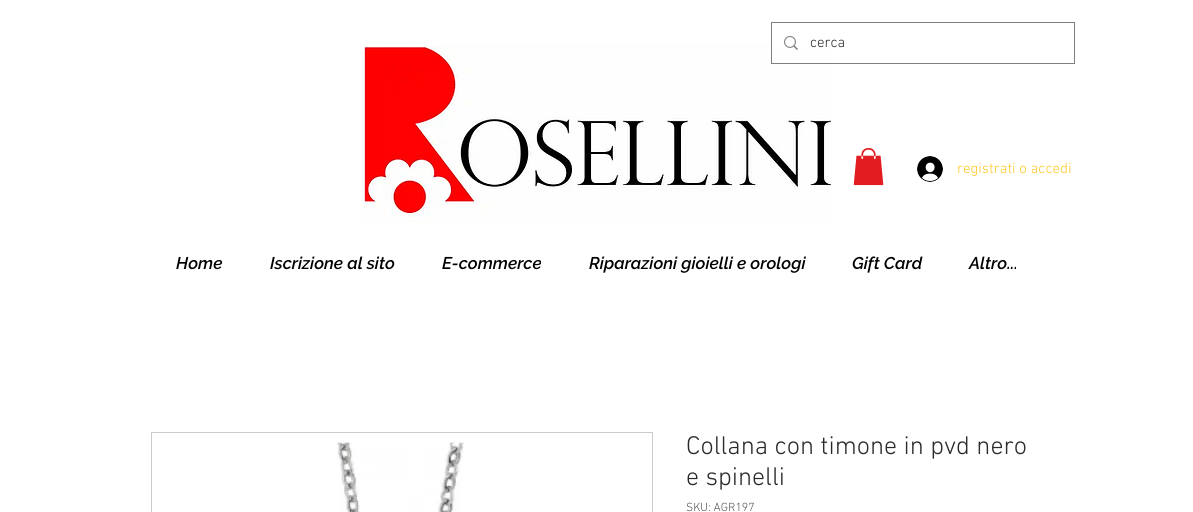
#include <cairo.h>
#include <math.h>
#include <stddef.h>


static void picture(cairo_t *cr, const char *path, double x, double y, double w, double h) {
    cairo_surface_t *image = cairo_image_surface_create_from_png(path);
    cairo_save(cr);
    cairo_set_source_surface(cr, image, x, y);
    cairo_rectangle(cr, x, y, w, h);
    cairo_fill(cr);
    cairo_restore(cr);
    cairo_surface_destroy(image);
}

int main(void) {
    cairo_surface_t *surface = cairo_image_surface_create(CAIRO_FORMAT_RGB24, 1193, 512);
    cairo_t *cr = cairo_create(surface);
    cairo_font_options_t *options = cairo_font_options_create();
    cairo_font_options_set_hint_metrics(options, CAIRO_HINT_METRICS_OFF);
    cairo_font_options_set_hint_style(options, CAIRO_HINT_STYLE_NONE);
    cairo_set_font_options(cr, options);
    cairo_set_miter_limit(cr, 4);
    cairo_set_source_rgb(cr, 1, 1, 1);
    cairo_paint(cr);
    picture(cr, "img2.png", 362, 46, 470, 177);
    cairo_rectangle(cr, 771.5, 22.5, 303, 41);
    cairo_set_source_rgba(cr, 0.165, 0.165, 0.165, 0.6);
    cairo_set_line_width(cr, 1);
    cairo_stroke(cr);
    cairo_set_source_rgb(cr, 1, 1, 1);
    cairo_rectangle(cr, 772, 46, 60, 4);
    cairo_fill(cr);
    picture(cr, "img1.png", 784, 36, 14, 14);
    cairo_select_font_face(cr, "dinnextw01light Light", CAIRO_FONT_SLANT_NORMAL, CAIRO_FONT_WEIGHT_NORMAL);
    cairo_set_font_size(cr, 15);
    cairo_set_source_rgb(cr, 0.165, 0.165, 0.165);
    cairo_move_to(cr, 810, 47);
    cairo_show_text(cr, "cerca");
    picture(cr, "img3.png", 853, 148, 31, 38);
    picture(cr, "img4.png", 917, 156, 26, 26);
    cairo_set_source_rgb(cr, 1, 0.784, 0.141);
    cairo_move_to(cr, 957, 173);
    cairo_show_text(cr, "registrati o accedi");
    cairo_select_font_face(cr, "Raleway SemiBold", CAIRO_FONT_SLANT_ITALIC, CAIRO_FONT_WEIGHT_NORMAL);
    cairo_set_font_size(cr, 17);
    cairo_set_source_rgb(cr, 0, 0, 0);
    cairo_move_to(cr, 176, 269);
    cairo_show_text(cr, "Home");
    cairo_move_to(cr, 270, 269);
    cairo_show_text(cr, "Iscrizione al sito");
    cairo_move_to(cr, 442, 269);
    cairo_show_text(cr, "E-commerce");
    cairo_move_to(cr, 589, 269);
    cairo_show_text(cr, "Riparazioni gioielli e orologi");
    cairo_move_to(cr, 852, 269);
    cairo_show_text(cr, "Gift Card");
    cairo_move_to(cr, 969, 269);
    cairo_show_text(cr, "Altro...");
    cairo_rectangle(cr, 151.5, 432.5, 501, 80);
    cairo_set_source_rgb(cr, 0.8, 0.8, 0.8);
    cairo_stroke(cr);
    picture(cr, "img5.png", 336, 441, 128, 71);
    cairo_select_font_face(cr, "dinnextw01light Light", CAIRO_FONT_SLANT_NORMAL, CAIRO_FONT_WEIGHT_NORMAL);
    cairo_set_font_size(cr, 26);
    cairo_set_source_rgb(cr, 0.165, 0.165, 0.165);
    cairo_move_to(cr, 686, 454);
    cairo_show_text(cr, "Collana con timone in pvd nero");
    cairo_move_to(cr, 686, 485);
    cairo_show_text(cr, "e spinelli");
    cairo_set_font_size(cr, 12);
    cairo_set_source_rgb(cr, 0.333, 0.333, 0.333);
    cairo_move_to(cr, 686, 511);
    cairo_show_text(cr, "SKU: AGR197");
    cairo_surface_write_to_png(surface, "page.png");
    cairo_font_options_destroy(options);
    cairo_destroy(cr);
    cairo_surface_destroy(surface);
    return 0;
}
